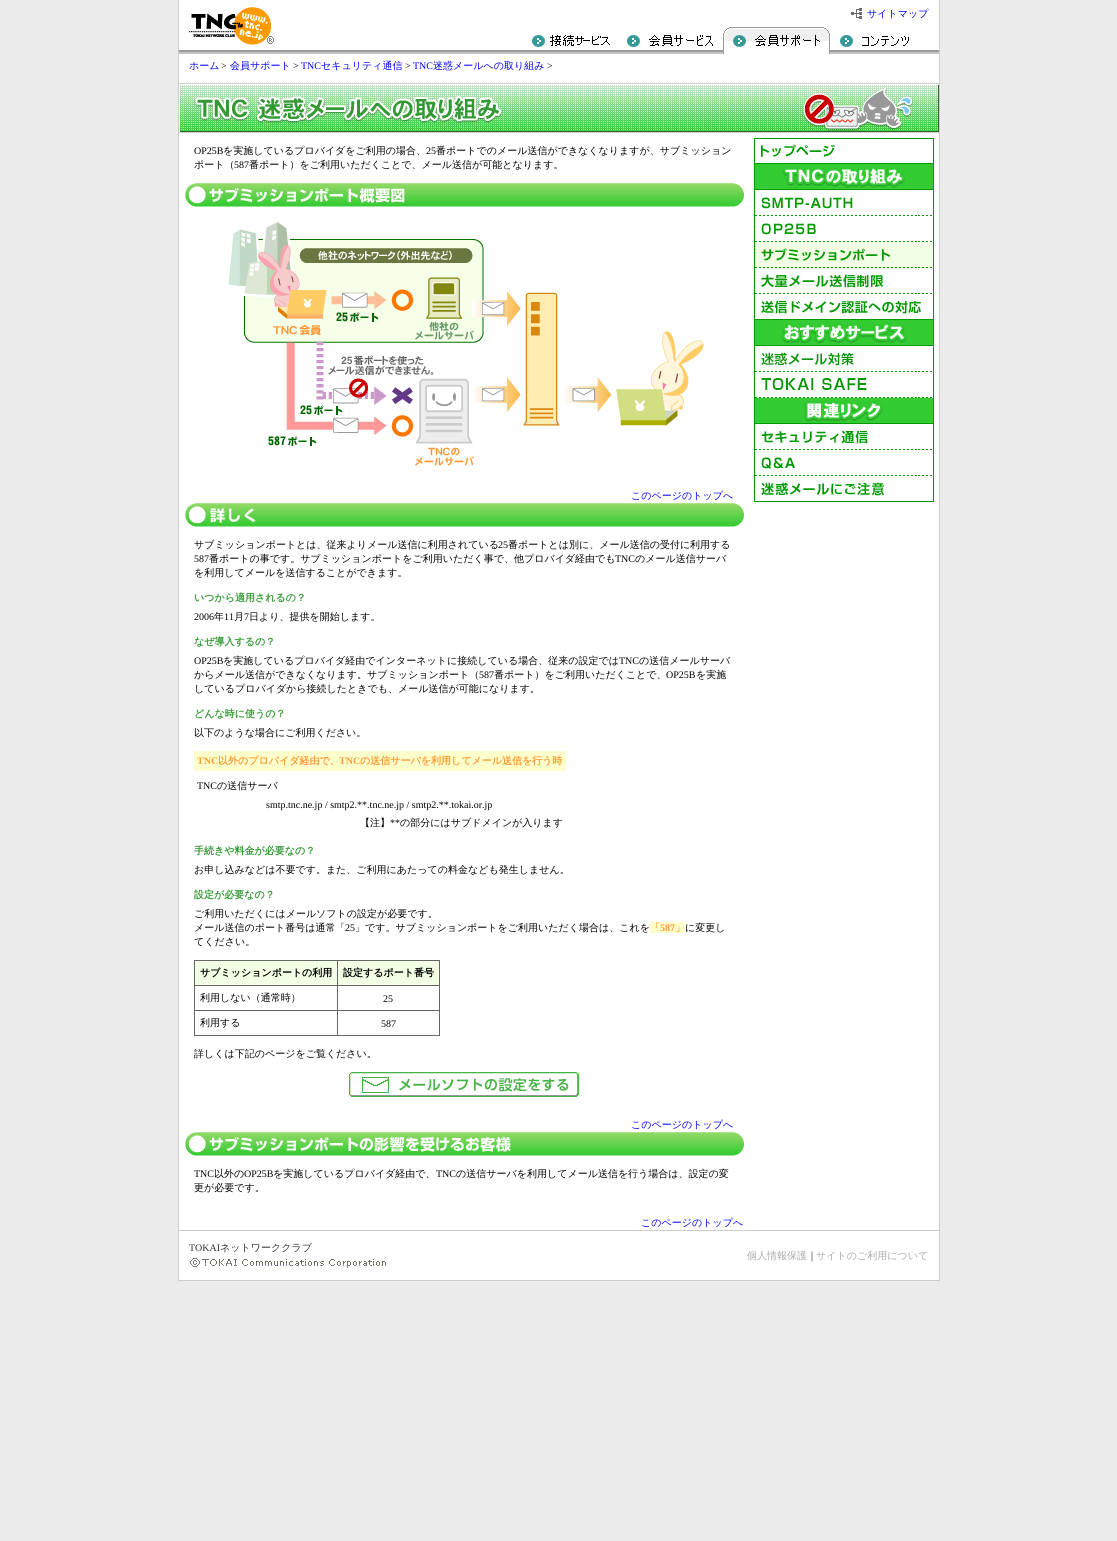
#include <cairo.h>
#include <math.h>
#include <stddef.h>


static void picture(cairo_t *cr, const char *path, double x, double y, double w, double h) {
    cairo_surface_t *image = cairo_image_surface_create_from_png(path);
    cairo_save(cr);
    cairo_set_source_surface(cr, image, x, y);
    cairo_rectangle(cr, x, y, w, h);
    cairo_fill(cr);
    cairo_restore(cr);
    cairo_surface_destroy(image);
}

int main(void) {
    cairo_surface_t *surface = cairo_image_surface_create(CAIRO_FORMAT_RGB24, 1117, 1541);
    cairo_t *cr = cairo_create(surface);
    cairo_font_options_t *options = cairo_font_options_create();
    cairo_font_options_set_hint_metrics(options, CAIRO_HINT_METRICS_OFF);
    cairo_font_options_set_hint_style(options, CAIRO_HINT_STYLE_NONE);
    cairo_set_font_options(cr, options);
    cairo_set_miter_limit(cr, 4);
    cairo_set_source_rgb(cr, 0.918, 0.918, 0.918);
    cairo_paint(cr);
    cairo_set_source_rgb(cr, 0.8, 0.8, 0.8);
    cairo_rectangle(cr, 178, 0, 1, 1281);
    cairo_fill(cr);
    cairo_set_source_rgb(cr, 1, 1, 1);
    cairo_rectangle(cr, 179, 0, 760, 1280);
    cairo_fill(cr);
    picture(cr, "img1.png", 189, 7, 85, 38);
    picture(cr, "img2.png", 851, 8, 11, 11);
    cairo_select_font_face(cr, "WenQuanYi Zen Hei Medium", CAIRO_FONT_SLANT_NORMAL, CAIRO_FONT_WEIGHT_NORMAL);
    cairo_set_font_size(cr, 10);
    cairo_set_source_rgb(cr, 0, 0, 1);
    cairo_move_to(cr, 867, 17);
    cairo_show_text(cr, "サイトマップ");
    picture(cr, "img3.png", 525, 35, 92, 19);
    picture(cr, "img4.png", 617, 35, 106, 19);
    picture(cr, "img5.png", 723, 27, 107, 27);
    picture(cr, "img6.png", 830, 35, 89, 19);
    picture(cr, "img7.png", 179, 50, 346, 4);
    picture(cr, "img8.png", 919, 50, 20, 4);
    cairo_move_to(cr, 189, 69);
    cairo_show_text(cr, "ホーム");
    cairo_select_font_face(cr, "Liberation Serif", CAIRO_FONT_SLANT_NORMAL, CAIRO_FONT_WEIGHT_NORMAL);
    cairo_set_source_rgb(cr, 0, 0, 0);
    cairo_move_to(cr, 221, 69);
    cairo_show_text(cr, ">");
    cairo_select_font_face(cr, "WenQuanYi Zen Hei Medium", CAIRO_FONT_SLANT_NORMAL, CAIRO_FONT_WEIGHT_NORMAL);
    cairo_set_source_rgb(cr, 0, 0, 1);
    cairo_move_to(cr, 230, 69);
    cairo_show_text(cr, "会員サポート");
    cairo_select_font_face(cr, "Liberation Serif", CAIRO_FONT_SLANT_NORMAL, CAIRO_FONT_WEIGHT_NORMAL);
    cairo_set_source_rgb(cr, 0, 0, 0);
    cairo_move_to(cr, 293, 69);
    cairo_show_text(cr, ">");
    cairo_set_source_rgb(cr, 0, 0, 1);
    cairo_move_to(cr, 301, 69);
    cairo_show_text(cr, "TNC");
    cairo_select_font_face(cr, "WenQuanYi Zen Hei Medium", CAIRO_FONT_SLANT_NORMAL, CAIRO_FONT_WEIGHT_NORMAL);
    cairo_move_to(cr, 321, 69);
    cairo_show_text(cr, "セキュリティ通信");
    cairo_select_font_face(cr, "Liberation Serif", CAIRO_FONT_SLANT_NORMAL, CAIRO_FONT_WEIGHT_NORMAL);
    cairo_set_source_rgb(cr, 0, 0, 0);
    cairo_move_to(cr, 405, 69);
    cairo_show_text(cr, ">");
    cairo_set_source_rgb(cr, 0, 0, 1);
    cairo_move_to(cr, 413, 69);
    cairo_show_text(cr, "TNC");
    cairo_select_font_face(cr, "WenQuanYi Zen Hei Medium", CAIRO_FONT_SLANT_NORMAL, CAIRO_FONT_WEIGHT_NORMAL);
    cairo_move_to(cr, 433, 69);
    cairo_show_text(cr, "迷惑メールへの取り組み");
    cairo_select_font_face(cr, "Liberation Serif", CAIRO_FONT_SLANT_NORMAL, CAIRO_FONT_WEIGHT_NORMAL);
    cairo_set_source_rgb(cr, 0, 0, 0);
    cairo_move_to(cr, 547, 69);
    cairo_show_text(cr, ">");
    picture(cr, "img9.png", 179, 83, 760, 50);
    cairo_move_to(cr, 194, 154);
    cairo_show_text(cr, "OP25B");
    cairo_select_font_face(cr, "WenQuanYi Zen Hei Medium", CAIRO_FONT_SLANT_NORMAL, CAIRO_FONT_WEIGHT_NORMAL);
    cairo_move_to(cr, 223, 154);
    cairo_show_text(cr, "を実施しているプロバイダをご利用の場合、");
    cairo_select_font_face(cr, "Liberation Serif", CAIRO_FONT_SLANT_NORMAL, CAIRO_FONT_WEIGHT_NORMAL);
    cairo_move_to(cr, 426, 154);
    cairo_show_text(cr, "25");
    cairo_select_font_face(cr, "WenQuanYi Zen Hei Medium", CAIRO_FONT_SLANT_NORMAL, CAIRO_FONT_WEIGHT_NORMAL);
    cairo_move_to(cr, 436, 154);
    cairo_show_text(cr, "番ポートでのメール送信ができなくなりますが、サブミッション");
    cairo_move_to(cr, 194, 168);
    cairo_show_text(cr, "ポート（");
    cairo_select_font_face(cr, "Liberation Serif", CAIRO_FONT_SLANT_NORMAL, CAIRO_FONT_WEIGHT_NORMAL);
    cairo_move_to(cr, 234, 168);
    cairo_show_text(cr, "587");
    cairo_select_font_face(cr, "WenQuanYi Zen Hei Medium", CAIRO_FONT_SLANT_NORMAL, CAIRO_FONT_WEIGHT_NORMAL);
    cairo_move_to(cr, 249, 168);
    cairo_show_text(cr, "番ポート）をご利用いただくことで、メール送信が可能となります。");
    picture(cr, "img10.png", 185, 183, 559, 24);
    picture(cr, "img11.png", 228, 222, 476, 244);
    cairo_set_source_rgb(cr, 0, 0, 1);
    cairo_move_to(cr, 631, 499);
    cairo_show_text(cr, "このページのトップへ");
    picture(cr, "img12.png", 185, 503, 559, 24);
    cairo_set_source_rgb(cr, 0, 0, 0);
    cairo_move_to(cr, 194, 548);
    cairo_show_text(cr, "サブミッションポートとは、従来よりメール送信に利用されている");
    cairo_select_font_face(cr, "Liberation Serif", CAIRO_FONT_SLANT_NORMAL, CAIRO_FONT_WEIGHT_NORMAL);
    cairo_move_to(cr, 498, 548);
    cairo_show_text(cr, "25");
    cairo_select_font_face(cr, "WenQuanYi Zen Hei Medium", CAIRO_FONT_SLANT_NORMAL, CAIRO_FONT_WEIGHT_NORMAL);
    cairo_move_to(cr, 508, 548);
    cairo_show_text(cr, "番ポートとは別に、メール送信の受付に利用する");
    cairo_select_font_face(cr, "Liberation Serif", CAIRO_FONT_SLANT_NORMAL, CAIRO_FONT_WEIGHT_NORMAL);
    cairo_move_to(cr, 194, 562);
    cairo_show_text(cr, "587");
    cairo_select_font_face(cr, "WenQuanYi Zen Hei Medium", CAIRO_FONT_SLANT_NORMAL, CAIRO_FONT_WEIGHT_NORMAL);
    cairo_move_to(cr, 209, 562);
    cairo_show_text(cr, "番ポートの事です。サブミッションポートをご利用いただく事で、他プロバイダ経由でも");
    cairo_select_font_face(cr, "Liberation Serif", CAIRO_FONT_SLANT_NORMAL, CAIRO_FONT_WEIGHT_NORMAL);
    cairo_move_to(cr, 615, 562);
    cairo_show_text(cr, "TNC");
    cairo_select_font_face(cr, "WenQuanYi Zen Hei Medium", CAIRO_FONT_SLANT_NORMAL, CAIRO_FONT_WEIGHT_NORMAL);
    cairo_move_to(cr, 635, 562);
    cairo_show_text(cr, "のメール送信サーバ");
    cairo_move_to(cr, 194, 576);
    cairo_show_text(cr, "を利用してメールを送信することができます。");
    cairo_select_font_face(cr, "WenQuanYi Zen Hei", CAIRO_FONT_SLANT_NORMAL, CAIRO_FONT_WEIGHT_BOLD);
    cairo_set_source_rgb(cr, 0.2, 0.6, 0.2);
    cairo_move_to(cr, 194, 601);
    cairo_show_text(cr, "いつから適用されるの？");
    cairo_select_font_face(cr, "Liberation Serif", CAIRO_FONT_SLANT_NORMAL, CAIRO_FONT_WEIGHT_NORMAL);
    cairo_set_source_rgb(cr, 0, 0, 0);
    cairo_move_to(cr, 194, 620);
    cairo_show_text(cr, "2006");
    cairo_select_font_face(cr, "WenQuanYi Zen Hei Medium", CAIRO_FONT_SLANT_NORMAL, CAIRO_FONT_WEIGHT_NORMAL);
    cairo_move_to(cr, 214, 620);
    cairo_show_text(cr, "年");
    cairo_select_font_face(cr, "Liberation Serif", CAIRO_FONT_SLANT_NORMAL, CAIRO_FONT_WEIGHT_NORMAL);
    cairo_move_to(cr, 224, 620);
    cairo_show_text(cr, "11");
    cairo_select_font_face(cr, "WenQuanYi Zen Hei Medium", CAIRO_FONT_SLANT_NORMAL, CAIRO_FONT_WEIGHT_NORMAL);
    cairo_move_to(cr, 234, 620);
    cairo_show_text(cr, "月");
    cairo_select_font_face(cr, "Liberation Serif", CAIRO_FONT_SLANT_NORMAL, CAIRO_FONT_WEIGHT_NORMAL);
    cairo_move_to(cr, 244, 620);
    cairo_show_text(cr, "7");
    cairo_select_font_face(cr, "WenQuanYi Zen Hei Medium", CAIRO_FONT_SLANT_NORMAL, CAIRO_FONT_WEIGHT_NORMAL);
    cairo_move_to(cr, 249, 620);
    cairo_show_text(cr, "日より、提供を開始します。");
    cairo_select_font_face(cr, "WenQuanYi Zen Hei", CAIRO_FONT_SLANT_NORMAL, CAIRO_FONT_WEIGHT_BOLD);
    cairo_set_source_rgb(cr, 0.2, 0.6, 0.2);
    cairo_move_to(cr, 194, 645);
    cairo_show_text(cr, "なぜ導入するの？");
    cairo_select_font_face(cr, "Liberation Serif", CAIRO_FONT_SLANT_NORMAL, CAIRO_FONT_WEIGHT_NORMAL);
    cairo_set_source_rgb(cr, 0, 0, 0);
    cairo_move_to(cr, 194, 664);
    cairo_show_text(cr, "OP25B");
    cairo_select_font_face(cr, "WenQuanYi Zen Hei Medium", CAIRO_FONT_SLANT_NORMAL, CAIRO_FONT_WEIGHT_NORMAL);
    cairo_move_to(cr, 223, 664);
    cairo_show_text(cr, "を実施しているプロバイダ経由でインターネットに接続している場合、従来の設定では");
    cairo_select_font_face(cr, "Liberation Serif", CAIRO_FONT_SLANT_NORMAL, CAIRO_FONT_WEIGHT_NORMAL);
    cairo_move_to(cr, 619, 664);
    cairo_show_text(cr, "TNC");
    cairo_select_font_face(cr, "WenQuanYi Zen Hei Medium", CAIRO_FONT_SLANT_NORMAL, CAIRO_FONT_WEIGHT_NORMAL);
    cairo_move_to(cr, 639, 664);
    cairo_show_text(cr, "の送信メールサーバ");
    cairo_move_to(cr, 194, 678);
    cairo_show_text(cr, "からメール送信ができなくなります。サブミッションポート（");
    cairo_select_font_face(cr, "Liberation Serif", CAIRO_FONT_SLANT_NORMAL, CAIRO_FONT_WEIGHT_NORMAL);
    cairo_move_to(cr, 479, 678);
    cairo_show_text(cr, "587");
    cairo_select_font_face(cr, "WenQuanYi Zen Hei Medium", CAIRO_FONT_SLANT_NORMAL, CAIRO_FONT_WEIGHT_NORMAL);
    cairo_move_to(cr, 494, 678);
    cairo_show_text(cr, "番ポート）をご利用いただくことで、");
    cairo_select_font_face(cr, "Liberation Serif", CAIRO_FONT_SLANT_NORMAL, CAIRO_FONT_WEIGHT_NORMAL);
    cairo_move_to(cr, 666, 678);
    cairo_show_text(cr, "OP25B");
    cairo_select_font_face(cr, "WenQuanYi Zen Hei Medium", CAIRO_FONT_SLANT_NORMAL, CAIRO_FONT_WEIGHT_NORMAL);
    cairo_move_to(cr, 696, 678);
    cairo_show_text(cr, "を実施");
    cairo_move_to(cr, 194, 692);
    cairo_show_text(cr, "しているプロバイダから接続したときでも、メール送信が可能になります。");
    cairo_select_font_face(cr, "WenQuanYi Zen Hei", CAIRO_FONT_SLANT_NORMAL, CAIRO_FONT_WEIGHT_BOLD);
    cairo_set_source_rgb(cr, 0.2, 0.6, 0.2);
    cairo_move_to(cr, 194, 717);
    cairo_show_text(cr, "どんな時に使うの？");
    cairo_select_font_face(cr, "WenQuanYi Zen Hei Medium", CAIRO_FONT_SLANT_NORMAL, CAIRO_FONT_WEIGHT_NORMAL);
    cairo_set_source_rgb(cr, 0, 0, 0);
    cairo_move_to(cr, 194, 736);
    cairo_show_text(cr, "以下のような場合にご利用ください。");
    cairo_set_source_rgb(cr, 1, 1, 0.8);
    cairo_rectangle(cr, 194, 751, 372, 20);
    cairo_fill(cr);
    cairo_select_font_face(cr, "Liberation Serif", CAIRO_FONT_SLANT_NORMAL, CAIRO_FONT_WEIGHT_BOLD);
    cairo_set_source_rgb(cr, 1, 0.6, 0.2);
    cairo_move_to(cr, 197, 764);
    cairo_show_text(cr, "TNC");
    cairo_select_font_face(cr, "WenQuanYi Zen Hei", CAIRO_FONT_SLANT_NORMAL, CAIRO_FONT_WEIGHT_BOLD);
    cairo_move_to(cr, 218, 764);
    cairo_show_text(cr, "以外のプロバイダ経由で、");
    cairo_select_font_face(cr, "Liberation Serif", CAIRO_FONT_SLANT_NORMAL, CAIRO_FONT_WEIGHT_BOLD);
    cairo_move_to(cr, 339, 764);
    cairo_show_text(cr, "TNC");
    cairo_select_font_face(cr, "WenQuanYi Zen Hei", CAIRO_FONT_SLANT_NORMAL, CAIRO_FONT_WEIGHT_BOLD);
    cairo_move_to(cr, 360, 764);
    cairo_show_text(cr, "の送信サーバを利用してメール送信を行う時");
    cairo_select_font_face(cr, "Liberation Serif", CAIRO_FONT_SLANT_NORMAL, CAIRO_FONT_WEIGHT_NORMAL);
    cairo_set_source_rgb(cr, 0, 0, 0);
    cairo_move_to(cr, 197, 789);
    cairo_show_text(cr, "TNC");
    cairo_select_font_face(cr, "WenQuanYi Zen Hei Medium", CAIRO_FONT_SLANT_NORMAL, CAIRO_FONT_WEIGHT_NORMAL);
    cairo_move_to(cr, 217, 789);
    cairo_show_text(cr, "の送信サーバ");
    cairo_select_font_face(cr, "Liberation Serif", CAIRO_FONT_SLANT_NORMAL, CAIRO_FONT_WEIGHT_NORMAL);
    cairo_move_to(cr, 266, 808);
    cairo_show_text(cr, "smtp.tnc.ne.jp / smtp2.**.tnc.ne.jp / smtp2.**.tokai.or.jp");
    cairo_select_font_face(cr, "WenQuanYi Zen Hei Medium", CAIRO_FONT_SLANT_NORMAL, CAIRO_FONT_WEIGHT_NORMAL);
    cairo_move_to(cr, 360, 826);
    cairo_show_text(cr, "【注】");
    cairo_select_font_face(cr, "Liberation Serif", CAIRO_FONT_SLANT_NORMAL, CAIRO_FONT_WEIGHT_NORMAL);
    cairo_move_to(cr, 390, 826);
    cairo_show_text(cr, "**");
    cairo_select_font_face(cr, "WenQuanYi Zen Hei Medium", CAIRO_FONT_SLANT_NORMAL, CAIRO_FONT_WEIGHT_NORMAL);
    cairo_move_to(cr, 400, 826);
    cairo_show_text(cr, "の部分にはサブドメインが入ります");
    cairo_select_font_face(cr, "WenQuanYi Zen Hei", CAIRO_FONT_SLANT_NORMAL, CAIRO_FONT_WEIGHT_BOLD);
    cairo_set_source_rgb(cr, 0.2, 0.6, 0.2);
    cairo_move_to(cr, 194, 854);
    cairo_show_text(cr, "手続きや料金が必要なの？");
    cairo_select_font_face(cr, "WenQuanYi Zen Hei Medium", CAIRO_FONT_SLANT_NORMAL, CAIRO_FONT_WEIGHT_NORMAL);
    cairo_set_source_rgb(cr, 0, 0, 0);
    cairo_move_to(cr, 194, 873);
    cairo_show_text(cr, "お申し込みなどは不要です。また、ご利用にあたっての料金なども発生しません。");
    cairo_select_font_face(cr, "WenQuanYi Zen Hei", CAIRO_FONT_SLANT_NORMAL, CAIRO_FONT_WEIGHT_BOLD);
    cairo_set_source_rgb(cr, 0.2, 0.6, 0.2);
    cairo_move_to(cr, 194, 898);
    cairo_show_text(cr, "設定が必要なの？");
    cairo_select_font_face(cr, "WenQuanYi Zen Hei Medium", CAIRO_FONT_SLANT_NORMAL, CAIRO_FONT_WEIGHT_NORMAL);
    cairo_set_source_rgb(cr, 0, 0, 0);
    cairo_move_to(cr, 194, 917);
    cairo_show_text(cr, "ご利用いただくにはメールソフトの設定が必要です。");
    cairo_move_to(cr, 194, 931);
    cairo_show_text(cr, "メール送信のポート番号は通常「");
    cairo_select_font_face(cr, "Liberation Serif", CAIRO_FONT_SLANT_NORMAL, CAIRO_FONT_WEIGHT_NORMAL);
    cairo_move_to(cr, 345, 931);
    cairo_show_text(cr, "25");
    cairo_select_font_face(cr, "WenQuanYi Zen Hei Medium", CAIRO_FONT_SLANT_NORMAL, CAIRO_FONT_WEIGHT_NORMAL);
    cairo_move_to(cr, 355, 931);
    cairo_show_text(cr, "」です。サブミッションポートをご利用いただく場合は、これを");
    cairo_set_source_rgb(cr, 1, 1, 0.8);
    cairo_rectangle(cr, 650, 922, 35, 11);
    cairo_fill(cr);
    cairo_select_font_face(cr, "WenQuanYi Zen Hei", CAIRO_FONT_SLANT_NORMAL, CAIRO_FONT_WEIGHT_BOLD);
    cairo_set_source_rgb(cr, 1, 0.6, 0.2);
    cairo_move_to(cr, 650, 931);
    cairo_show_text(cr, "「");
    cairo_select_font_face(cr, "Liberation Serif", CAIRO_FONT_SLANT_NORMAL, CAIRO_FONT_WEIGHT_BOLD);
    cairo_move_to(cr, 660, 931);
    cairo_show_text(cr, "587");
    cairo_select_font_face(cr, "WenQuanYi Zen Hei", CAIRO_FONT_SLANT_NORMAL, CAIRO_FONT_WEIGHT_BOLD);
    cairo_move_to(cr, 675, 931);
    cairo_show_text(cr, "」");
    cairo_select_font_face(cr, "WenQuanYi Zen Hei Medium", CAIRO_FONT_SLANT_NORMAL, CAIRO_FONT_WEIGHT_NORMAL);
    cairo_set_source_rgb(cr, 0, 0, 0);
    cairo_move_to(cr, 685, 931);
    cairo_show_text(cr, "に変更し");
    cairo_move_to(cr, 194, 945);
    cairo_show_text(cr, "てください。");
    cairo_set_source_rgb(cr, 0.4, 0.4, 0.4);
    cairo_rectangle(cr, 194, 960, 246, 76);
    cairo_fill(cr);
    cairo_set_source_rgb(cr, 0.949, 1, 0.894);
    cairo_rectangle(cr, 195, 961, 142, 24);
    cairo_fill(cr);
    cairo_select_font_face(cr, "WenQuanYi Zen Hei", CAIRO_FONT_SLANT_NORMAL, CAIRO_FONT_WEIGHT_BOLD);
    cairo_set_source_rgb(cr, 0, 0, 0);
    cairo_move_to(cr, 200, 976);
    cairo_show_text(cr, "サブミッションポートの利用");
    cairo_set_source_rgb(cr, 0.949, 1, 0.894);
    cairo_rectangle(cr, 338, 961, 101, 24);
    cairo_fill(cr);
    cairo_set_source_rgb(cr, 0, 0, 0);
    cairo_move_to(cr, 343, 976);
    cairo_show_text(cr, "設定するポート番号");
    cairo_set_source_rgb(cr, 1, 1, 1);
    cairo_rectangle(cr, 195, 986, 142, 24);
    cairo_fill(cr);
    cairo_select_font_face(cr, "WenQuanYi Zen Hei Medium", CAIRO_FONT_SLANT_NORMAL, CAIRO_FONT_WEIGHT_NORMAL);
    cairo_set_source_rgb(cr, 0, 0, 0);
    cairo_move_to(cr, 200, 1001);
    cairo_show_text(cr, "利用しない（通常時）");
    cairo_set_source_rgb(cr, 1, 1, 1);
    cairo_rectangle(cr, 338, 986, 101, 24);
    cairo_fill(cr);
    cairo_select_font_face(cr, "Liberation Serif", CAIRO_FONT_SLANT_NORMAL, CAIRO_FONT_WEIGHT_NORMAL);
    cairo_set_source_rgb(cr, 0, 0, 0);
    cairo_move_to(cr, 383, 1002);
    cairo_show_text(cr, "25");
    cairo_set_source_rgb(cr, 1, 1, 1);
    cairo_rectangle(cr, 195, 1011, 142, 24);
    cairo_fill(cr);
    cairo_select_font_face(cr, "WenQuanYi Zen Hei Medium", CAIRO_FONT_SLANT_NORMAL, CAIRO_FONT_WEIGHT_NORMAL);
    cairo_set_source_rgb(cr, 0, 0, 0);
    cairo_move_to(cr, 200, 1026);
    cairo_show_text(cr, "利用する");
    cairo_set_source_rgb(cr, 1, 1, 1);
    cairo_rectangle(cr, 338, 1011, 101, 24);
    cairo_fill(cr);
    cairo_select_font_face(cr, "Liberation Serif", CAIRO_FONT_SLANT_NORMAL, CAIRO_FONT_WEIGHT_NORMAL);
    cairo_set_source_rgb(cr, 0, 0, 0);
    cairo_move_to(cr, 381, 1027);
    cairo_show_text(cr, "587");
    cairo_select_font_face(cr, "WenQuanYi Zen Hei Medium", CAIRO_FONT_SLANT_NORMAL, CAIRO_FONT_WEIGHT_NORMAL);
    cairo_move_to(cr, 194, 1057);
    cairo_show_text(cr, "詳しくは下記のページをご覧ください。");
    picture(cr, "img13.png", 349, 1072, 230, 25);
    cairo_set_source_rgb(cr, 0, 0, 1);
    cairo_move_to(cr, 631, 1128);
    cairo_show_text(cr, "このページのトップへ");
    picture(cr, "img14.png", 185, 1132, 559, 24);
    cairo_select_font_face(cr, "Liberation Serif", CAIRO_FONT_SLANT_NORMAL, CAIRO_FONT_WEIGHT_NORMAL);
    cairo_set_source_rgb(cr, 0, 0, 0);
    cairo_move_to(cr, 194, 1177);
    cairo_show_text(cr, "TNC");
    cairo_select_font_face(cr, "WenQuanYi Zen Hei Medium", CAIRO_FONT_SLANT_NORMAL, CAIRO_FONT_WEIGHT_NORMAL);
    cairo_move_to(cr, 214, 1177);
    cairo_show_text(cr, "以外の");
    cairo_select_font_face(cr, "Liberation Serif", CAIRO_FONT_SLANT_NORMAL, CAIRO_FONT_WEIGHT_NORMAL);
    cairo_move_to(cr, 244, 1177);
    cairo_show_text(cr, "OP25B");
    cairo_select_font_face(cr, "WenQuanYi Zen Hei Medium", CAIRO_FONT_SLANT_NORMAL, CAIRO_FONT_WEIGHT_NORMAL);
    cairo_move_to(cr, 273, 1177);
    cairo_show_text(cr, "を実施しているプロバイダ経由で、");
    cairo_select_font_face(cr, "Liberation Serif", CAIRO_FONT_SLANT_NORMAL, CAIRO_FONT_WEIGHT_NORMAL);
    cairo_move_to(cr, 436, 1177);
    cairo_show_text(cr, "TNC");
    cairo_select_font_face(cr, "WenQuanYi Zen Hei Medium", CAIRO_FONT_SLANT_NORMAL, CAIRO_FONT_WEIGHT_NORMAL);
    cairo_move_to(cr, 456, 1177);
    cairo_show_text(cr, "の送信サーバを利用してメール送信を行う場合は、設定の変");
    cairo_move_to(cr, 194, 1191);
    cairo_show_text(cr, "更が必要です。");
    cairo_set_source_rgb(cr, 0, 0, 1);
    cairo_move_to(cr, 641, 1226);
    cairo_show_text(cr, "このページのトップへ");
    picture(cr, "img15.png", 754, 138, 180, 26);
    picture(cr, "img16.png", 754, 164, 180, 26);
    picture(cr, "img17.png", 754, 190, 180, 26);
    picture(cr, "img18.png", 754, 216, 180, 26);
    picture(cr, "img19.png", 754, 242, 180, 26);
    picture(cr, "img20.png", 754, 268, 180, 26);
    picture(cr, "img21.png", 754, 294, 180, 26);
    picture(cr, "img22.png", 754, 320, 180, 26);
    picture(cr, "img23.png", 754, 346, 180, 26);
    picture(cr, "img24.png", 754, 372, 180, 26);
    picture(cr, "img25.png", 754, 398, 180, 26);
    picture(cr, "img26.png", 754, 424, 180, 26);
    picture(cr, "img27.png", 754, 450, 180, 26);
    picture(cr, "img28.png", 754, 476, 180, 26);
    cairo_set_source_rgb(cr, 0.8, 0.8, 0.8);
    cairo_rectangle(cr, 179, 1230, 760, 1);
    cairo_fill(cr);
    cairo_select_font_face(cr, "Liberation Serif", CAIRO_FONT_SLANT_NORMAL, CAIRO_FONT_WEIGHT_NORMAL);
    cairo_set_source_rgb(cr, 0.2, 0.2, 0.2);
    cairo_move_to(cr, 189, 1251);
    cairo_show_text(cr, "TOKAI");
    cairo_select_font_face(cr, "WenQuanYi Zen Hei Medium", CAIRO_FONT_SLANT_NORMAL, CAIRO_FONT_WEIGHT_NORMAL);
    cairo_move_to(cr, 220, 1251);
    cairo_show_text(cr, "ネットワーククラブ");
    picture(cr, "img29.png", 190, 1258, 196, 10);
    cairo_set_source_rgb(cr, 0.667, 0.667, 0.667);
    cairo_move_to(cr, 747, 1259);
    cairo_show_text(cr, "個人情報保護");
    cairo_set_source_rgb(cr, 0.2, 0.2, 0.2);
    cairo_move_to(cr, 807, 1259);
    cairo_show_text(cr, "｜");
    cairo_set_source_rgb(cr, 0.667, 0.667, 0.667);
    cairo_move_to(cr, 816, 1259);
    cairo_show_text(cr, "サイトのご利用について");
    cairo_set_source_rgb(cr, 0.8, 0.8, 0.8);
    cairo_rectangle(cr, 179, 1280, 760, 1);
    cairo_fill(cr);
    cairo_rectangle(cr, 939, 0, 1, 1281);
    cairo_fill(cr);
    cairo_surface_write_to_png(surface, "page.png");
    cairo_font_options_destroy(options);
    cairo_destroy(cr);
    cairo_surface_destroy(surface);
    return 0;
}
